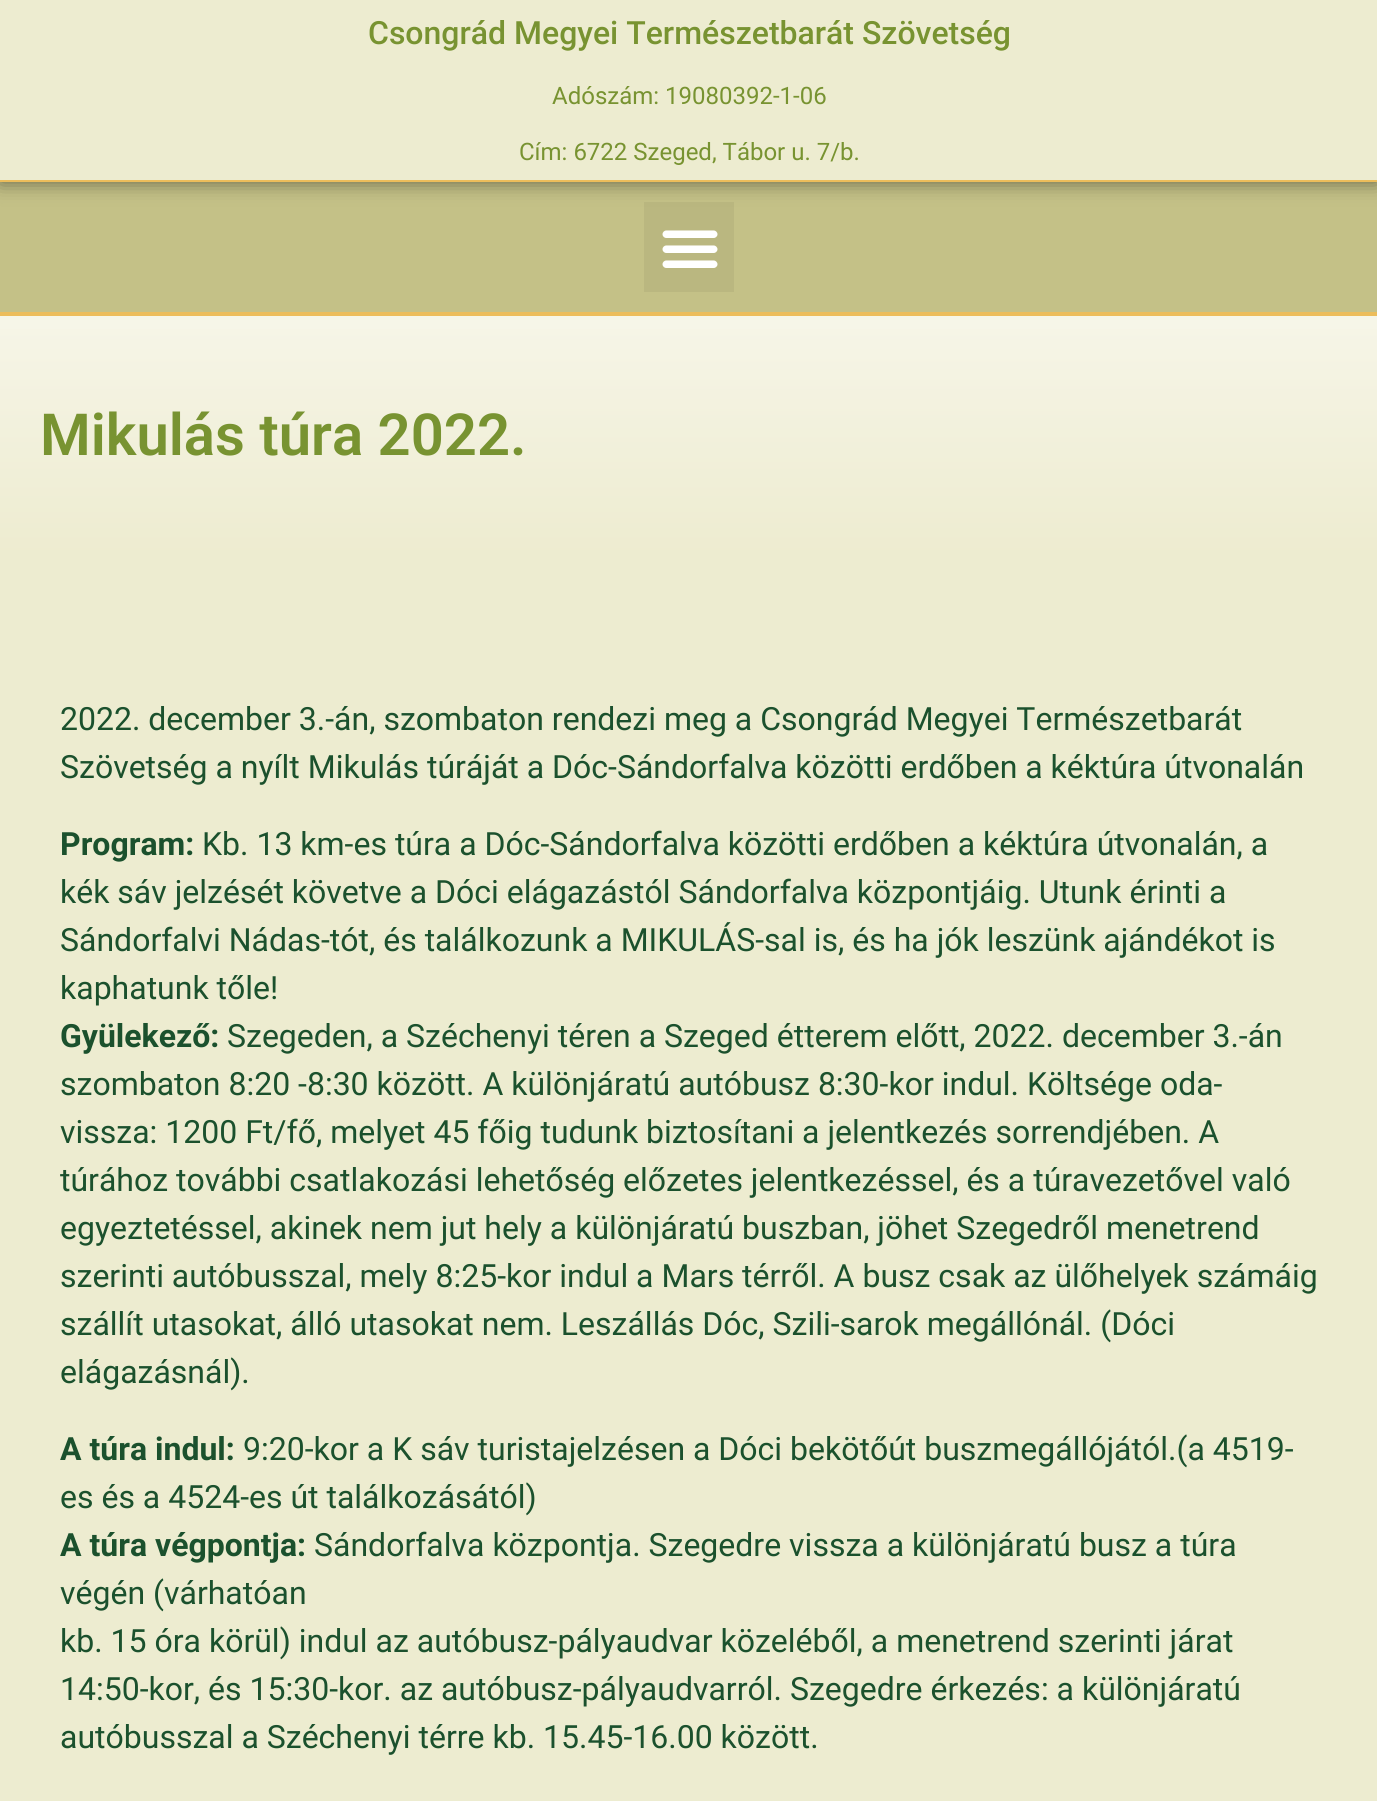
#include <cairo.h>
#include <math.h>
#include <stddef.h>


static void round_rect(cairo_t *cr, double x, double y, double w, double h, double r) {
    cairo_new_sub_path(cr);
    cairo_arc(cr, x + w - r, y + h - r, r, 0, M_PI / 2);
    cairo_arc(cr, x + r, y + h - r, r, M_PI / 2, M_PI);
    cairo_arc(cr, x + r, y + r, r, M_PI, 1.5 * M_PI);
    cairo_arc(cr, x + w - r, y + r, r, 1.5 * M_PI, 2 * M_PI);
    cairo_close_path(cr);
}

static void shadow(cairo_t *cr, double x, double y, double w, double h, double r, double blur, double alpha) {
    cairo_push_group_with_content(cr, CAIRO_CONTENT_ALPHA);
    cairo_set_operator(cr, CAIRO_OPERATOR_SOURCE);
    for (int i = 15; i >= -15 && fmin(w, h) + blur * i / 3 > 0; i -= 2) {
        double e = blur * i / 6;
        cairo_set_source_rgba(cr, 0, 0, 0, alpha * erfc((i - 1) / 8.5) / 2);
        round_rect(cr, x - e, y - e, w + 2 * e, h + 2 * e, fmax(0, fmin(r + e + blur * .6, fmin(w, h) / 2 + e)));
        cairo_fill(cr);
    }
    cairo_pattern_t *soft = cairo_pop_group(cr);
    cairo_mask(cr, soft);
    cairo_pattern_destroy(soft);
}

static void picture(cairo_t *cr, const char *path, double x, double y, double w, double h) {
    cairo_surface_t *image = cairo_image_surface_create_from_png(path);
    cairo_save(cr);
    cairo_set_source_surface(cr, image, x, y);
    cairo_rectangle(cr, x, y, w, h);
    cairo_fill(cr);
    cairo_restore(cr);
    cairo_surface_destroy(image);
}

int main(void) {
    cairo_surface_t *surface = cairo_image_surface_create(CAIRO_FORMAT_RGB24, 1377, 1801);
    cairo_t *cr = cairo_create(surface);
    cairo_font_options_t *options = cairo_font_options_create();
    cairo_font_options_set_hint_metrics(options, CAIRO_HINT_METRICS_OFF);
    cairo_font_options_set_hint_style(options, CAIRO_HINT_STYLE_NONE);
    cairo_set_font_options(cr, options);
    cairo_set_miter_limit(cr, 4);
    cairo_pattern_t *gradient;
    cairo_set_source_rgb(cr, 0.929, 0.922, 0.816);
    cairo_paint(cr);
    cairo_set_source_rgb(cr, 0.769, 0.757, 0.529);
    cairo_rectangle(cr, 0, 182, 1377, 130);
    cairo_fill(cr);
    cairo_set_source_rgb(cr, 0.729, 0.718, 0.502);
    cairo_rectangle(cr, 644, 202, 90, 90);
    cairo_fill(cr);
    cairo_set_source_rgb(cr, 0, 0, 0);
    shadow(cr, 0, 0, 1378, 182, 0, 10, 0.5);
    cairo_set_source_rgb(cr, 0.929, 0.922, 0.816);
    cairo_rectangle(cr, 0, 0, 1377, 180);
    cairo_fill(cr);
    cairo_set_source_rgb(cr, 0.922, 0.741, 0.357);
    cairo_rectangle(cr, 0, 180, 1377, 2);
    cairo_fill(cr);
    cairo_select_font_face(cr, "Roboto Medium", CAIRO_FONT_SLANT_NORMAL, CAIRO_FONT_WEIGHT_NORMAL);
    cairo_set_font_size(cr, 32);
    cairo_set_source_rgb(cr, 0.471, 0.576, 0.192);
    cairo_move_to(cr, 368, 44);
    cairo_show_text(cr, "Csongrád Megyei Természetbarát Szövetség");
    cairo_select_font_face(cr, "Roboto", CAIRO_FONT_SLANT_NORMAL, CAIRO_FONT_WEIGHT_NORMAL);
    cairo_set_font_size(cr, 24);
    cairo_move_to(cr, 552, 104);
    cairo_show_text(cr, "Adószám: 19080392-1-06");
    cairo_move_to(cr, 519, 160);
    cairo_show_text(cr, "Cím: 6722 Szeged, Tábor u. 7/b.");
    cairo_set_source_rgb(cr, 0.922, 0.741, 0.357);
    cairo_rectangle(cr, 0, 312, 1377, 4);
    cairo_fill(cr);
    picture(cr, "img1.png", 662, 230, 56, 38);
    gradient = cairo_pattern_create_linear(689, 316, 689, 556);
    cairo_pattern_add_color_stop_rgba(gradient, 0, 0.929, 0.922, 0.816, 1);
    cairo_pattern_add_color_stop_rgba(gradient, 1, 0.859, 0.847, 0.627, 1);
    cairo_set_source(cr, gradient);
    cairo_pattern_destroy(gradient);
    cairo_rectangle(cr, 0, 329, 1377, 227);
    cairo_fill(cr);
    cairo_set_source_rgba(cr, 1, 1, 1, 0.5);
    cairo_rectangle(cr, 0, 316, 1377, 240);
    cairo_fill(cr);
    cairo_select_font_face(cr, "Roboto SemiBold", CAIRO_FONT_SLANT_NORMAL, CAIRO_FONT_WEIGHT_NORMAL);
    cairo_set_font_size(cr, 58);
    cairo_set_source_rgb(cr, 0.471, 0.576, 0.192);
    cairo_move_to(cr, 40, 455);
    cairo_show_text(cr, "Mikulás túra 2022.");
    cairo_select_font_face(cr, "Roboto", CAIRO_FONT_SLANT_NORMAL, CAIRO_FONT_WEIGHT_NORMAL);
    cairo_set_font_size(cr, 32);
    cairo_set_source_rgb(cr, 0.106, 0.318, 0.176);
    cairo_move_to(cr, 60, 730);
    cairo_show_text(cr, "2022. december 3.-án, szombaton rendezi meg a Csongrád Megyei Természetbarát");
    cairo_move_to(cr, 60, 778);
    cairo_show_text(cr, "Szövetség a nyílt Mikulás túráját a Dóc-Sándorfalva közötti erdőben a kéktúra útvonalán");
    cairo_select_font_face(cr, "Roboto", CAIRO_FONT_SLANT_NORMAL, CAIRO_FONT_WEIGHT_BOLD);
    cairo_move_to(cr, 60, 855);
    cairo_show_text(cr, "Program:");
    cairo_select_font_face(cr, "Roboto", CAIRO_FONT_SLANT_NORMAL, CAIRO_FONT_WEIGHT_NORMAL);
    cairo_move_to(cr, 202, 855);
    cairo_show_text(cr, "Kb. 13 km-es túra a Dóc-Sándorfalva közötti erdőben a kéktúra útvonalán, a");
    cairo_move_to(cr, 60, 903);
    cairo_show_text(cr, "kék sáv jelzését követve a Dóci elágazástól Sándorfalva központjáig. Utunk érinti a");
    cairo_move_to(cr, 60, 951);
    cairo_show_text(cr, "Sándorfalvi Nádas-tót, és találkozunk a MIKULÁS-sal is, és ha jók leszünk ajándékot is");
    cairo_move_to(cr, 60, 999);
    cairo_show_text(cr, "kaphatunk tőle!");
    cairo_select_font_face(cr, "Roboto", CAIRO_FONT_SLANT_NORMAL, CAIRO_FONT_WEIGHT_BOLD);
    cairo_move_to(cr, 60, 1047);
    cairo_show_text(cr, "Gyülekező:");
    cairo_select_font_face(cr, "Roboto", CAIRO_FONT_SLANT_NORMAL, CAIRO_FONT_WEIGHT_NORMAL);
    cairo_move_to(cr, 227, 1047);
    cairo_show_text(cr, "Szegeden, a Széchenyi téren a Szeged étterem előtt, 2022. december 3.-án");
    cairo_move_to(cr, 60, 1095);
    cairo_show_text(cr, "szombaton 8:20 -8:30 között. A különjáratú autóbusz 8:30-kor indul. Költsége oda-");
    cairo_move_to(cr, 60, 1143);
    cairo_show_text(cr, "vissza: 1200 Ft/fő, melyet 45 főig tudunk biztosítani a jelentkezés sorrendjében. A");
    cairo_move_to(cr, 60, 1191);
    cairo_show_text(cr, "túrához további csatlakozási lehetőség előzetes jelentkezéssel, és a túravezetővel való");
    cairo_move_to(cr, 60, 1239);
    cairo_show_text(cr, "egyeztetéssel, akinek nem jut hely a különjáratú buszban, jöhet Szegedről menetrend");
    cairo_move_to(cr, 60, 1287);
    cairo_show_text(cr, "szerinti autóbusszal, mely 8:25-kor indul a Mars térről. A busz csak az ülőhelyek számáig");
    cairo_move_to(cr, 60, 1335);
    cairo_show_text(cr, "szállít utasokat, álló utasokat nem. Leszállás Dóc, Szili-sarok megállónál. (Dóci");
    cairo_move_to(cr, 60, 1383);
    cairo_show_text(cr, "elágazásnál).");
    cairo_select_font_face(cr, "Roboto", CAIRO_FONT_SLANT_NORMAL, CAIRO_FONT_WEIGHT_BOLD);
    cairo_move_to(cr, 60, 1460);
    cairo_show_text(cr, "A túra indul:");
    cairo_select_font_face(cr, "Roboto", CAIRO_FONT_SLANT_NORMAL, CAIRO_FONT_WEIGHT_NORMAL);
    cairo_move_to(cr, 243, 1460);
    cairo_show_text(cr, "9:20-kor a K sáv turistajelzésen a Dóci bekötőút buszmegállójától.(a 4519-");
    cairo_move_to(cr, 60, 1508);
    cairo_show_text(cr, "es és a 4524-es út találkozásától)");
    cairo_select_font_face(cr, "Roboto", CAIRO_FONT_SLANT_NORMAL, CAIRO_FONT_WEIGHT_BOLD);
    cairo_move_to(cr, 60, 1556);
    cairo_show_text(cr, "A túra végpontja:");
    cairo_select_font_face(cr, "Roboto", CAIRO_FONT_SLANT_NORMAL, CAIRO_FONT_WEIGHT_NORMAL);
    cairo_move_to(cr, 314, 1556);
    cairo_show_text(cr, "Sándorfalva központja. Szegedre vissza a különjáratú busz a túra");
    cairo_move_to(cr, 60, 1604);
    cairo_show_text(cr, "végén (várhatóan");
    cairo_move_to(cr, 60, 1652);
    cairo_show_text(cr, "kb. 15 óra körül) indul az autóbusz-pályaudvar közeléből, a menetrend szerinti járat");
    cairo_move_to(cr, 60, 1700);
    cairo_show_text(cr, "14:50-kor, és 15:30-kor. az autóbusz-pályaudvarról. Szegedre érkezés: a különjáratú");
    cairo_move_to(cr, 60, 1748);
    cairo_show_text(cr, "autóbusszal a Széchenyi térre kb. 15.45-16.00 között.");
    cairo_surface_write_to_png(surface, "page.png");
    cairo_font_options_destroy(options);
    cairo_destroy(cr);
    cairo_surface_destroy(surface);
    return 0;
}
